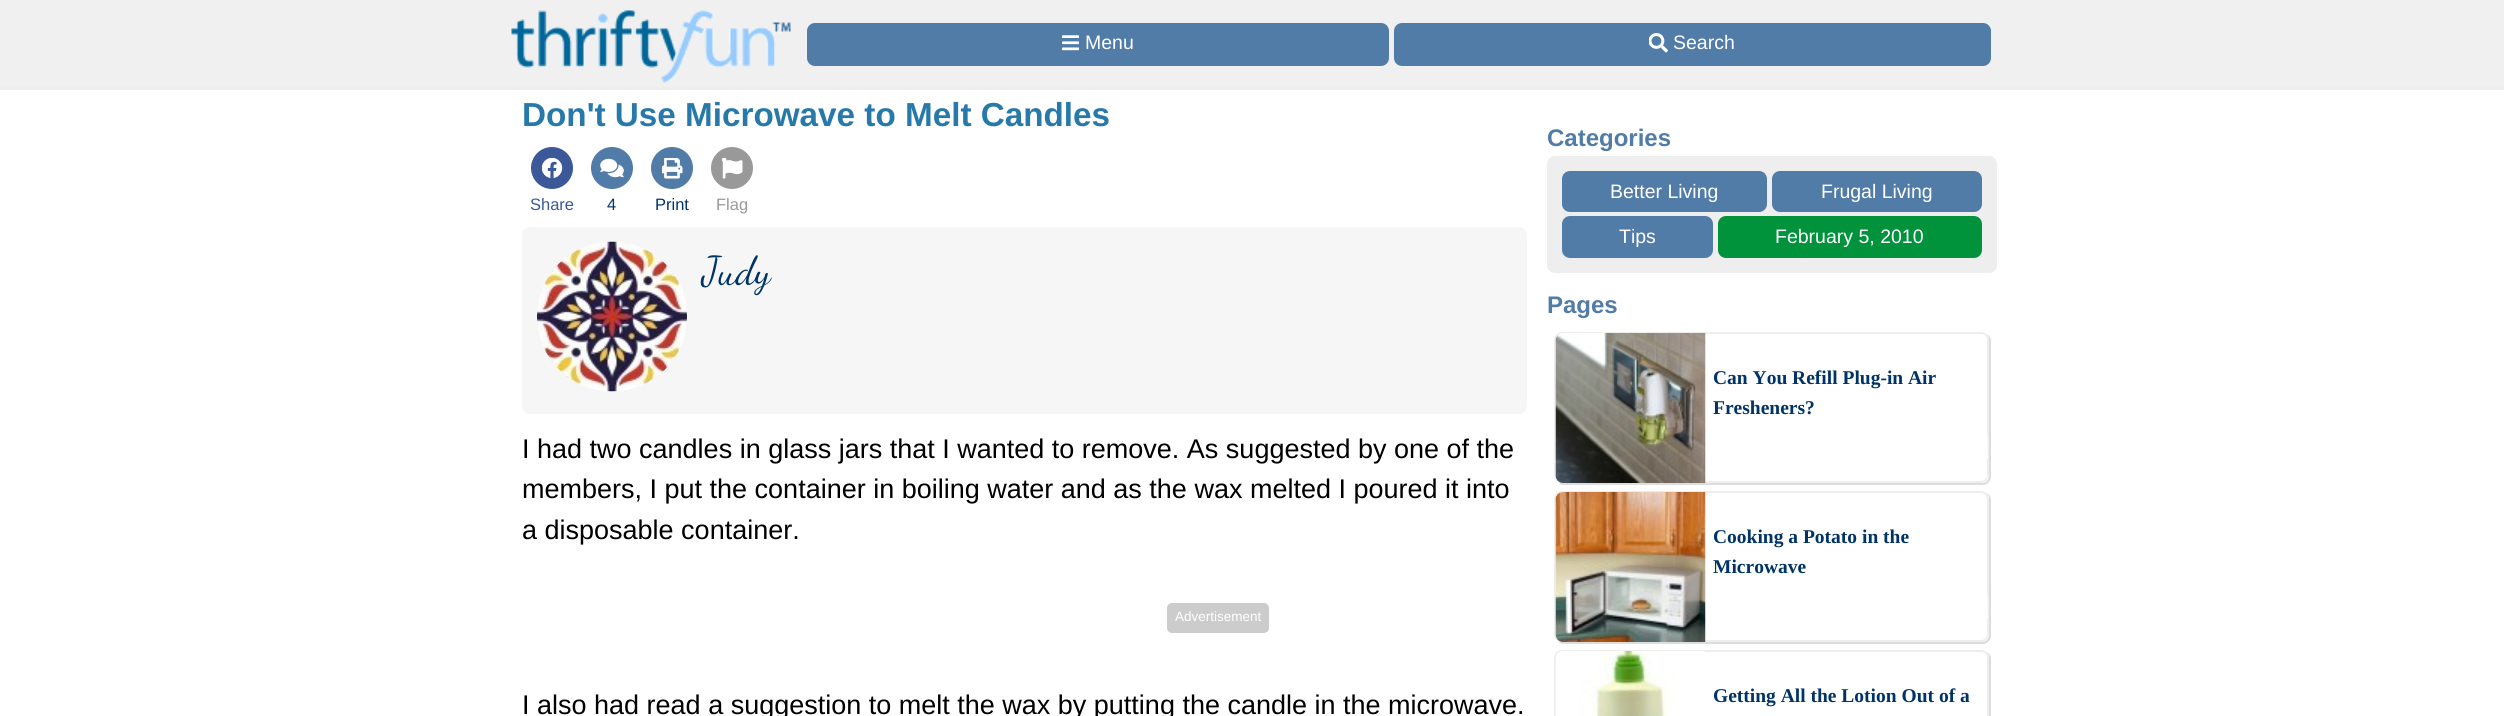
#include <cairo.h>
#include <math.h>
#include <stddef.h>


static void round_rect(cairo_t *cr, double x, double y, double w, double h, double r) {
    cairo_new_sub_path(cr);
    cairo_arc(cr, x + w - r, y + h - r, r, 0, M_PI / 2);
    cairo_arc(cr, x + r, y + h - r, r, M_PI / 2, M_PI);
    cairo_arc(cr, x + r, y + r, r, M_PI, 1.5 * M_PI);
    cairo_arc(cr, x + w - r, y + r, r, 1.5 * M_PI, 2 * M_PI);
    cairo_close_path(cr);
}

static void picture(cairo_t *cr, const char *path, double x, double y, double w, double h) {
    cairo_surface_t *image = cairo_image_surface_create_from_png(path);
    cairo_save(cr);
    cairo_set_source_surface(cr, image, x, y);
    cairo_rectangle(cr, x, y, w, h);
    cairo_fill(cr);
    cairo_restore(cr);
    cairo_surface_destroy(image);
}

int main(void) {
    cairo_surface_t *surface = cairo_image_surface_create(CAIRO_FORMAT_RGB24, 2504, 716);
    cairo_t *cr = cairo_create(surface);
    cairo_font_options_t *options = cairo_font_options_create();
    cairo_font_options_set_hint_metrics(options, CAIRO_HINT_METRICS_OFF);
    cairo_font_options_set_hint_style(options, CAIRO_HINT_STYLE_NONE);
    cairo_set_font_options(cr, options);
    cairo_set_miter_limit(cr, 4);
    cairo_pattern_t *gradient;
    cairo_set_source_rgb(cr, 1, 1, 1);
    cairo_paint(cr);
    cairo_set_source_rgb(cr, 0.941, 0.941, 0.941);
    cairo_rectangle(cr, 0, 0, 2504, 87);
    cairo_fill(cr);
    cairo_set_source_rgb(cr, 0.933, 0.933, 0.933);
    cairo_rectangle(cr, 0, 87, 2504, 3);
    cairo_fill(cr);
    picture(cr, "img1.png", 511, 10, 280, 73);
    cairo_set_source_rgb(cr, 0.318, 0.486, 0.659);
    round_rect(cr, 807, 23, 582, 43, 8);
    cairo_fill(cr);
    picture(cr, "img2.png", 1062, 35, 17, 16);
    cairo_select_font_face(cr, "Liberation Sans", CAIRO_FONT_SLANT_NORMAL, CAIRO_FONT_WEIGHT_NORMAL);
    cairo_set_font_size(cr, 19.5);
    cairo_set_source_rgb(cr, 1, 1, 1);
    cairo_move_to(cr, 1085, 49);
    cairo_show_text(cr, "Menu");
    cairo_set_source_rgb(cr, 0.318, 0.486, 0.659);
    round_rect(cr, 1394, 23, 597, 43, 8);
    cairo_fill(cr);
    picture(cr, "img3.png", 1649, 33, 19, 20);
    cairo_set_source_rgb(cr, 1, 1, 1);
    cairo_move_to(cr, 1673, 49);
    cairo_show_text(cr, "Search");
    cairo_select_font_face(cr, "Liberation Sans", CAIRO_FONT_SLANT_NORMAL, CAIRO_FONT_WEIGHT_BOLD);
    cairo_set_font_size(cr, 33.25);
    cairo_set_source_rgb(cr, 0.153, 0.475, 0.667);
    cairo_move_to(cr, 522, 126);
    cairo_show_text(cr, "Don't Use Microwave to Melt Candles");
    picture(cr, "img4.png", 531, 147, 42, 42);
    cairo_select_font_face(cr, "Liberation Sans", CAIRO_FONT_SLANT_NORMAL, CAIRO_FONT_WEIGHT_NORMAL);
    cairo_set_font_size(cr, 16.5);
    cairo_set_source_rgb(cr, 0.231, 0.349, 0.596);
    cairo_move_to(cr, 530, 210);
    cairo_show_text(cr, "Share");
    picture(cr, "img5.png", 591, 147, 42, 42);
    cairo_set_source_rgb(cr, 0, 0.2, 0.4);
    cairo_move_to(cr, 607, 210);
    cairo_show_text(cr, "4");
    picture(cr, "img6.png", 651, 147, 42, 42);
    cairo_move_to(cr, 655, 210);
    cairo_show_text(cr, "Print");
    picture(cr, "img7.png", 711, 147, 42, 42);
    cairo_set_source_rgb(cr, 0.6, 0.6, 0.6);
    cairo_move_to(cr, 716, 210);
    cairo_show_text(cr, "Flag");
    cairo_set_source_rgb(cr, 0.961, 0.961, 0.961);
    round_rect(cr, 522, 227, 1005, 187, 8);
    cairo_fill(cr);
    picture(cr, "img8.png", 537, 241, 150, 151);
    cairo_select_font_face(cr, "Dancing Script", CAIRO_FONT_SLANT_NORMAL, CAIRO_FONT_WEIGHT_NORMAL);
    cairo_set_font_size(cr, 40);
    cairo_set_source_rgb(cr, 0, 0.2, 0.4);
    cairo_move_to(cr, 702, 284);
    cairo_show_text(cr, "Judy");
    cairo_select_font_face(cr, "Liberation Sans", CAIRO_FONT_SLANT_NORMAL, CAIRO_FONT_WEIGHT_NORMAL);
    cairo_set_font_size(cr, 27);
    cairo_set_source_rgb(cr, 0, 0, 0);
    cairo_move_to(cr, 522, 458);
    cairo_show_text(cr, "I had two candles in glass jars that I wanted to remove. As suggested by one of the");
    cairo_move_to(cr, 522, 498);
    cairo_show_text(cr, "members, I put the container in boiling water and as the wax melted I poured it into");
    cairo_move_to(cr, 522, 539);
    cairo_show_text(cr, "a disposable container.");
    cairo_set_source_rgb(cr, 0.8, 0.8, 0.8);
    round_rect(cr, 1167, 603, 102, 30, 5);
    cairo_fill(cr);
    cairo_set_font_size(cr, 13.5);
    cairo_set_source_rgb(cr, 1, 1, 1);
    cairo_move_to(cr, 1175, 621);
    cairo_show_text(cr, "Advertisement");
    cairo_set_font_size(cr, 27);
    cairo_set_source_rgb(cr, 0, 0, 0);
    cairo_move_to(cr, 522, 714);
    cairo_show_text(cr, "I also had read a suggestion to melt the wax by putting the candle in the microwave.");
    cairo_select_font_face(cr, "Liberation Sans", CAIRO_FONT_SLANT_NORMAL, CAIRO_FONT_WEIGHT_BOLD);
    cairo_set_font_size(cr, 24);
    cairo_set_source_rgb(cr, 0.318, 0.486, 0.659);
    cairo_move_to(cr, 1547, 146);
    cairo_show_text(cr, "Categories");
    cairo_set_source_rgb(cr, 0.933, 0.933, 0.933);
    round_rect(cr, 1547, 156, 450, 117, 8);
    cairo_fill(cr);
    cairo_set_source_rgb(cr, 0.318, 0.486, 0.659);
    round_rect(cr, 1562, 171, 205, 41, 8);
    cairo_fill(cr);
    cairo_select_font_face(cr, "Liberation Sans", CAIRO_FONT_SLANT_NORMAL, CAIRO_FONT_WEIGHT_NORMAL);
    cairo_set_font_size(cr, 19.5);
    cairo_set_source_rgb(cr, 1, 1, 1);
    cairo_move_to(cr, 1610, 198);
    cairo_show_text(cr, "Better Living");
    cairo_set_source_rgb(cr, 0.318, 0.486, 0.659);
    round_rect(cr, 1772, 171, 210, 41, 8);
    cairo_fill(cr);
    cairo_set_source_rgb(cr, 1, 1, 1);
    cairo_move_to(cr, 1821, 198);
    cairo_show_text(cr, "Frugal Living");
    cairo_set_source_rgb(cr, 0.318, 0.486, 0.659);
    round_rect(cr, 1562, 216, 151, 42, 8);
    cairo_fill(cr);
    cairo_set_source_rgb(cr, 1, 1, 1);
    cairo_move_to(cr, 1619, 243);
    cairo_show_text(cr, "Tips");
    cairo_set_source_rgb(cr, 0, 0.576, 0.231);
    round_rect(cr, 1718, 216, 264, 42, 8);
    cairo_fill(cr);
    cairo_set_source_rgb(cr, 1, 1, 1);
    cairo_move_to(cr, 1775, 243);
    cairo_show_text(cr, "February 5, 2010");
    cairo_select_font_face(cr, "Liberation Sans", CAIRO_FONT_SLANT_NORMAL, CAIRO_FONT_WEIGHT_BOLD);
    cairo_set_font_size(cr, 24);
    cairo_set_source_rgb(cr, 0.318, 0.486, 0.659);
    cairo_move_to(cr, 1547, 313);
    cairo_show_text(cr, "Pages");
    cairo_set_source_rgb(cr, 0.867, 0.867, 0.867);
    cairo_new_path(cr);
    cairo_move_to(cr, 1558, 482);
    cairo_curve_to(cr, 1559, 484, 1561, 485, 1564, 485);
    cairo_line_to(cr, 1983, 485);
    cairo_curve_to(cr, 1987, 485, 1991, 481, 1991, 477);
    cairo_line_to(cr, 1991, 341);
    cairo_curve_to(cr, 1991, 338, 1990, 336, 1987, 334);
    cairo_curve_to(cr, 1988, 336, 1989, 337, 1989, 339);
    cairo_line_to(cr, 1989, 476);
    cairo_curve_to(cr, 1989, 480, 1986, 483, 1982, 483);
    cairo_line_to(cr, 1562, 483);
    cairo_curve_to(cr, 1560, 483, 1559, 483, 1558, 482);
    cairo_close_path(cr);
    cairo_fill(cr);
    round_rect(cr, 1555, 333, 433, 149, 7);
    cairo_set_source_rgb(cr, 0.933, 0.933, 0.933);
    cairo_stroke(cr);
    picture(cr, "img9.png", 1555, 333, 151, 150);
    cairo_select_font_face(cr, "Liberation Serif", CAIRO_FONT_SLANT_NORMAL, CAIRO_FONT_WEIGHT_BOLD);
    cairo_set_font_size(cr, 19.5);
    cairo_set_source_rgb(cr, 0, 0.2, 0.4);
    cairo_move_to(cr, 1713, 384);
    cairo_show_text(cr, "Can You Refill Plug-in Air");
    cairo_move_to(cr, 1713, 414);
    cairo_show_text(cr, "Fresheners?");
    gradient = cairo_pattern_create_linear(1850, 429, 1850, 459);
    cairo_pattern_add_color_stop_rgba(gradient, 0, 1, 1, 1, 0);
    cairo_pattern_add_color_stop_rgba(gradient, 0.33, 1, 1, 1, 0.6);
    cairo_pattern_add_color_stop_rgba(gradient, 0.67, 1, 1, 1, 0.9);
    cairo_pattern_add_color_stop_rgba(gradient, 1, 1, 1, 1, 1);
    cairo_set_source(cr, gradient);
    cairo_pattern_destroy(gradient);
    cairo_rectangle(cr, 1987, 431, 1, 28);
    cairo_fill(cr);
    cairo_set_source_rgb(cr, 0.867, 0.867, 0.867);
    cairo_new_path(cr);
    cairo_move_to(cr, 1558, 641);
    cairo_curve_to(cr, 1559, 643, 1561, 644, 1564, 644);
    cairo_line_to(cr, 1983, 644);
    cairo_curve_to(cr, 1987, 644, 1991, 640, 1991, 636);
    cairo_line_to(cr, 1991, 500);
    cairo_curve_to(cr, 1991, 497, 1990, 495, 1987, 493);
    cairo_curve_to(cr, 1988, 495, 1989, 496, 1989, 498);
    cairo_line_to(cr, 1989, 634);
    cairo_curve_to(cr, 1989, 639, 1986, 642, 1982, 642);
    cairo_line_to(cr, 1562, 642);
    cairo_curve_to(cr, 1560, 642, 1559, 642, 1558, 641);
    cairo_close_path(cr);
    cairo_fill(cr);
    round_rect(cr, 1555, 492, 433, 149, 7);
    cairo_set_source_rgb(cr, 0.933, 0.933, 0.933);
    cairo_stroke(cr);
    picture(cr, "img10.png", 1555, 492, 151, 150);
    cairo_set_source_rgb(cr, 0, 0.2, 0.4);
    cairo_move_to(cr, 1713, 543);
    cairo_show_text(cr, "Cooking a Potato in the");
    cairo_move_to(cr, 1713, 573);
    cairo_show_text(cr, "Microwave");
    gradient = cairo_pattern_create_linear(1850, 588, 1850, 618);
    cairo_pattern_add_color_stop_rgba(gradient, 0, 1, 1, 1, 0);
    cairo_pattern_add_color_stop_rgba(gradient, 0.33, 1, 1, 1, 0.6);
    cairo_pattern_add_color_stop_rgba(gradient, 0.67, 1, 1, 1, 0.9);
    cairo_pattern_add_color_stop_rgba(gradient, 1, 1, 1, 1, 1);
    cairo_set_source(cr, gradient);
    cairo_pattern_destroy(gradient);
    cairo_rectangle(cr, 1987, 590, 1, 28);
    cairo_fill(cr);
    cairo_set_source_rgb(cr, 0.867, 0.867, 0.867);
    cairo_new_path(cr);
    cairo_move_to(cr, 1558, 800);
    cairo_curve_to(cr, 1559, 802, 1561, 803, 1564, 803);
    cairo_line_to(cr, 1983, 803);
    cairo_curve_to(cr, 1987, 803, 1991, 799, 1991, 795);
    cairo_line_to(cr, 1991, 659);
    cairo_curve_to(cr, 1991, 656, 1990, 654, 1987, 652);
    cairo_curve_to(cr, 1988, 654, 1989, 655, 1989, 657);
    cairo_line_to(cr, 1989, 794);
    cairo_curve_to(cr, 1989, 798, 1986, 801, 1982, 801);
    cairo_line_to(cr, 1562, 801);
    cairo_curve_to(cr, 1560, 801, 1559, 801, 1558, 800);
    cairo_close_path(cr);
    cairo_fill(cr);
    round_rect(cr, 1555, 651, 433, 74, 7);
    cairo_set_source_rgb(cr, 0.933, 0.933, 0.933);
    cairo_stroke(cr);
    picture(cr, "img11.png", 1555, 651, 151, 65);
    cairo_set_source_rgb(cr, 0, 0.2, 0.4);
    cairo_move_to(cr, 1713, 702);
    cairo_show_text(cr, "Getting All the Lotion Out of a");
    cairo_surface_write_to_png(surface, "page.png");
    cairo_font_options_destroy(options);
    cairo_destroy(cr);
    cairo_surface_destroy(surface);
    return 0;
}
